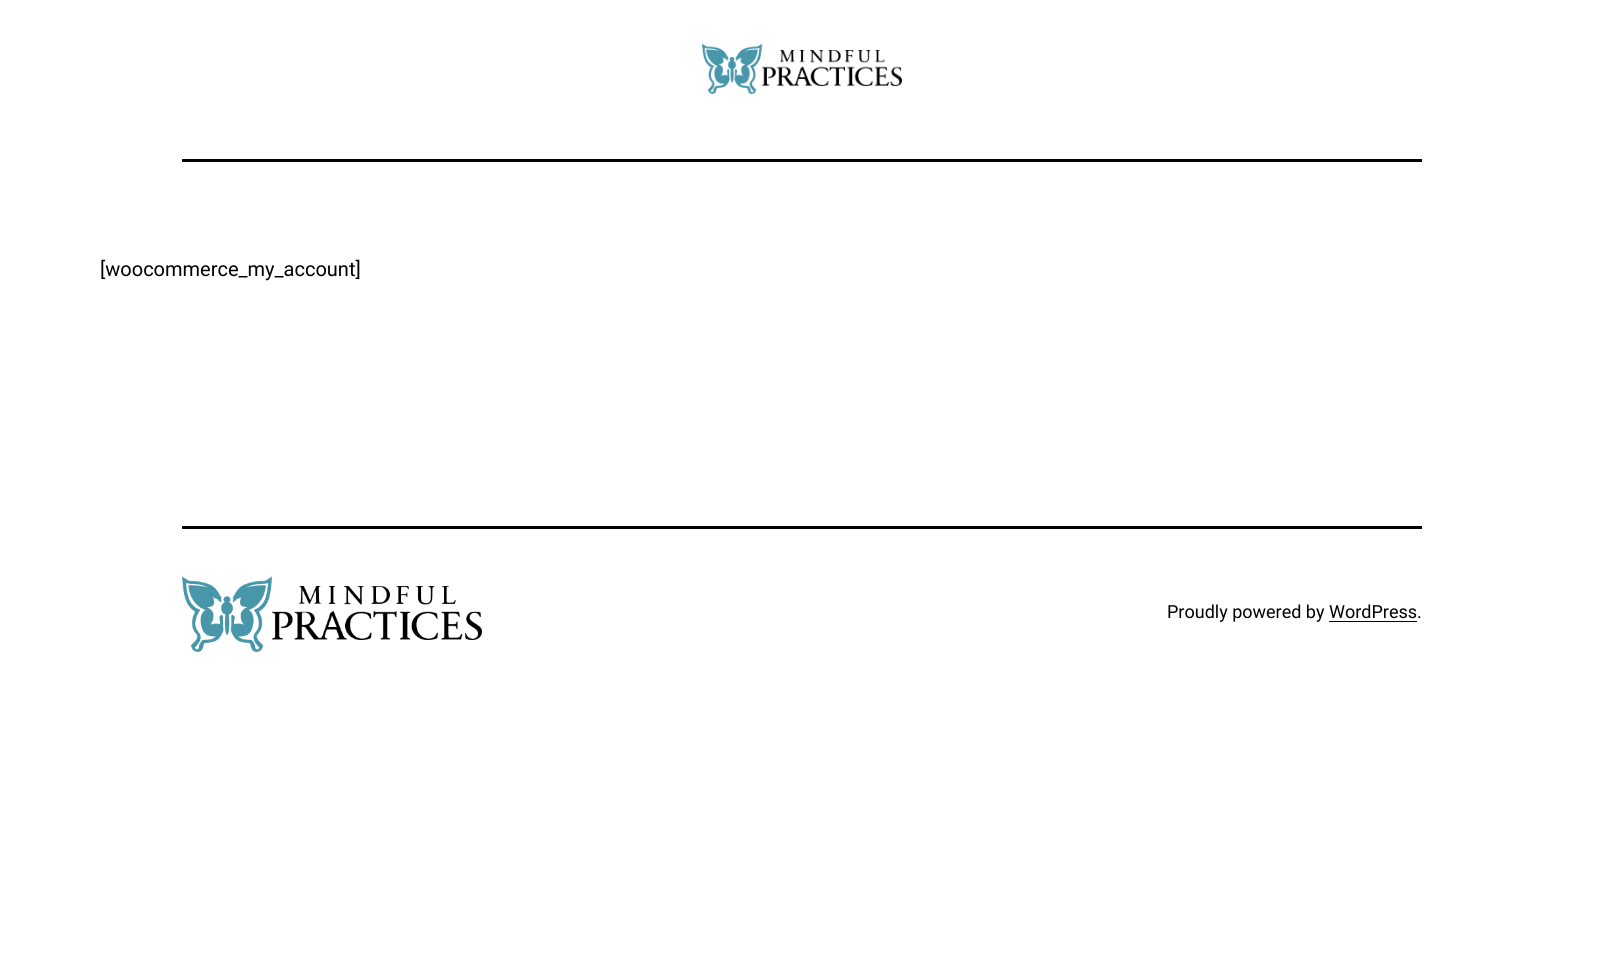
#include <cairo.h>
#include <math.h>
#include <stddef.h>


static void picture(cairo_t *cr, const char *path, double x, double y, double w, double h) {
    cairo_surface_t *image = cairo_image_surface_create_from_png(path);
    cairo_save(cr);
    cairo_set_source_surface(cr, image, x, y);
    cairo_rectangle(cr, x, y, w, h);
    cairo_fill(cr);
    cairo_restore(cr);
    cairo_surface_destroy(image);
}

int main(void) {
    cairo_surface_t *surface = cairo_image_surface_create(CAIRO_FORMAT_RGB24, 1604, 959);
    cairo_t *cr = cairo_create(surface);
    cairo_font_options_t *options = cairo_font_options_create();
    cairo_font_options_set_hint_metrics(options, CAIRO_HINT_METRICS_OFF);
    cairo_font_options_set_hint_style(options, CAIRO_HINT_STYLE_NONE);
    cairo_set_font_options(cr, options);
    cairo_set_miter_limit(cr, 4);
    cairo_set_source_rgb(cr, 1, 1, 1);
    cairo_paint(cr);
    picture(cr, "img1.png", 702, 43, 200, 51);
    cairo_set_source_rgb(cr, 0, 0, 0);
    cairo_rectangle(cr, 182, 159, 1240, 3);
    cairo_fill(cr);
    cairo_select_font_face(cr, "Roboto", CAIRO_FONT_SLANT_NORMAL, CAIRO_FONT_WEIGHT_NORMAL);
    cairo_set_font_size(cr, 20);
    cairo_move_to(cr, 100, 276);
    cairo_show_text(cr, "[woocommerce_my_account]");
    cairo_rectangle(cr, 182, 526, 1240, 3);
    cairo_fill(cr);
    picture(cr, "img2.png", 182, 576, 300, 76);
    cairo_set_font_size(cr, 18);
    cairo_move_to(cr, 1167, 618);
    cairo_show_text(cr, "Proudly powered by WordPress.");
    cairo_rectangle(cr, 1329, 621, 88, 1);
    cairo_fill(cr);
    cairo_surface_write_to_png(surface, "page.png");
    cairo_font_options_destroy(options);
    cairo_destroy(cr);
    cairo_surface_destroy(surface);
    return 0;
}
